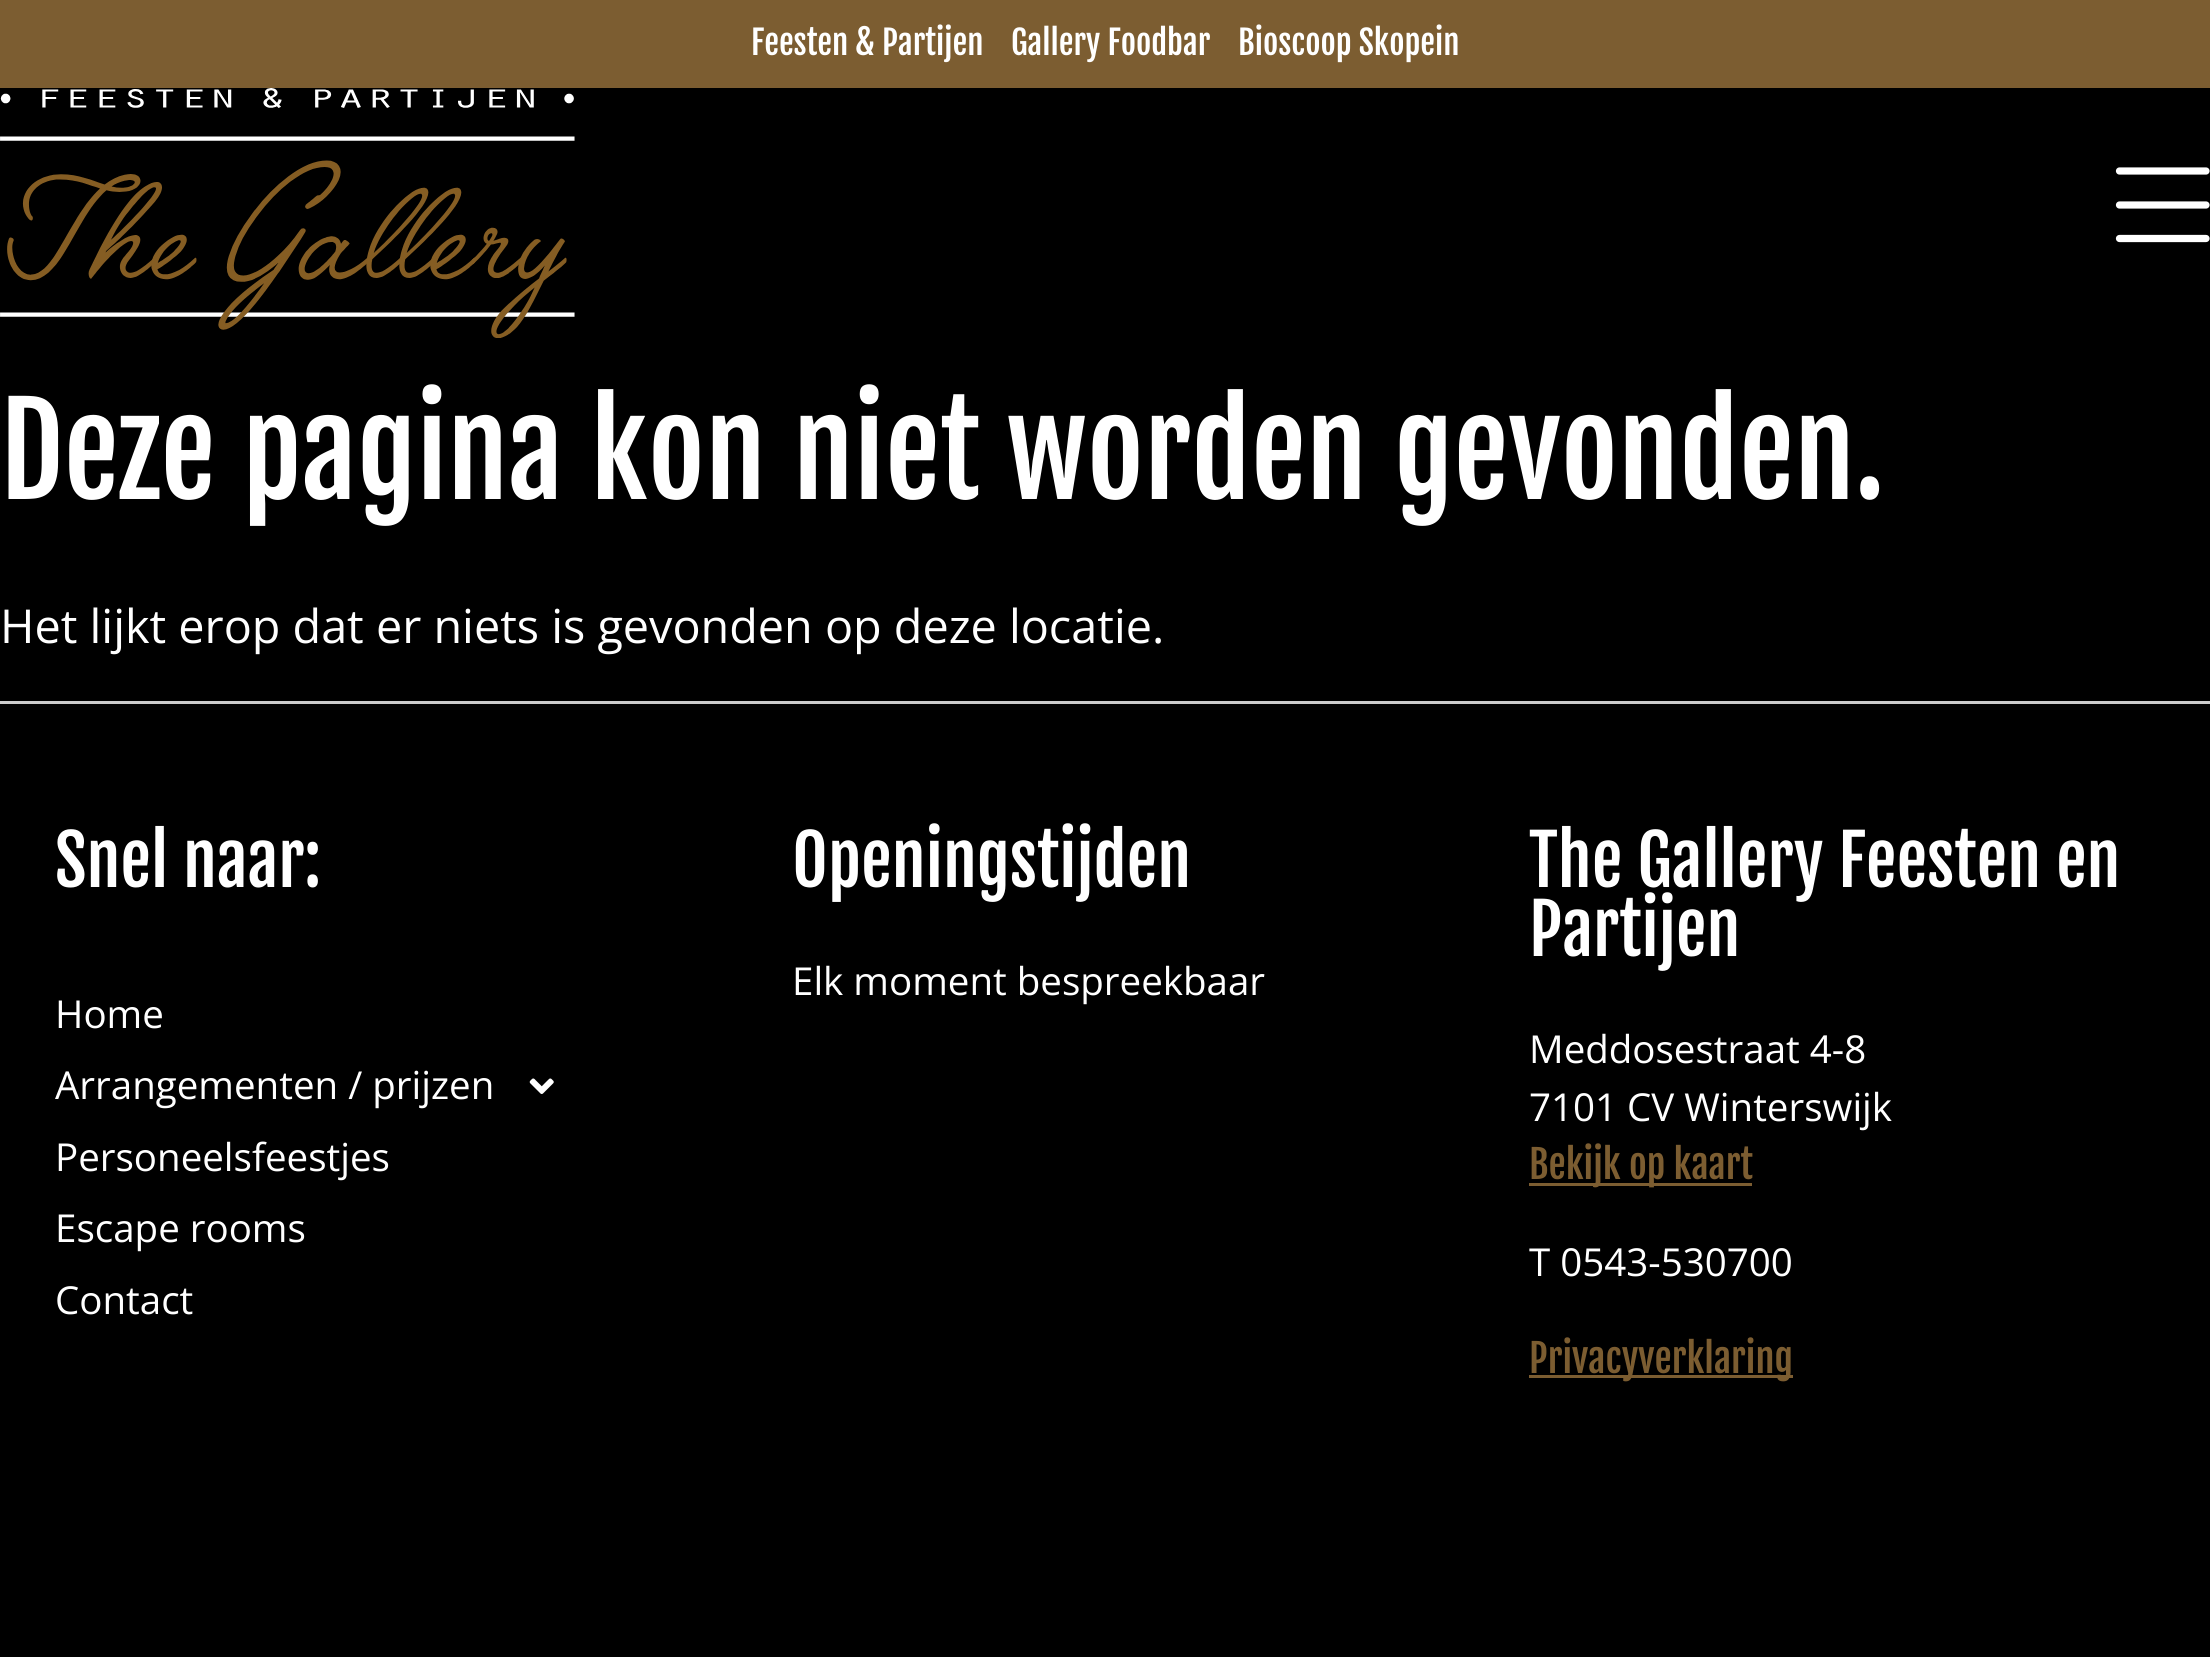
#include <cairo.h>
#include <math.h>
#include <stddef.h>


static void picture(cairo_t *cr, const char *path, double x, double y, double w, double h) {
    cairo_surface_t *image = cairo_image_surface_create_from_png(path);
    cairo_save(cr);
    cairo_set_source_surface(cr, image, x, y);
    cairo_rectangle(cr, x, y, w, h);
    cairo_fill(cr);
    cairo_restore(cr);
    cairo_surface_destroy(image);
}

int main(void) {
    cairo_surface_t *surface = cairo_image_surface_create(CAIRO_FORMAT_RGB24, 2210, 1657);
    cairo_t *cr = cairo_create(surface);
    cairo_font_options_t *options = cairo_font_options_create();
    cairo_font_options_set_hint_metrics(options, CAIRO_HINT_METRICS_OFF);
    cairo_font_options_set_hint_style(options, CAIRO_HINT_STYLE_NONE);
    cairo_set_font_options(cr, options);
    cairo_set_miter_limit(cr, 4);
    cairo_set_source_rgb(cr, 0, 0, 0);
    cairo_paint(cr);
    cairo_set_source_rgb(cr, 0.486, 0.365, 0.192);
    cairo_rectangle(cr, 0, 0, 2210, 88);
    cairo_fill(cr);
    cairo_select_font_face(cr, "Fjalla One", CAIRO_FONT_SLANT_NORMAL, CAIRO_FONT_WEIGHT_NORMAL);
    cairo_set_font_size(cr, 33);
    cairo_set_source_rgb(cr, 1, 1, 1);
    cairo_move_to(cr, 751, 55);
    cairo_show_text(cr, "Feesten & Partijen");
    cairo_move_to(cr, 1011, 55);
    cairo_show_text(cr, "Gallery Foodbar");
    cairo_move_to(cr, 1238, 55);
    cairo_show_text(cr, "Bioscoop Skopein");
    picture(cr, "img1.png", 0, 88, 575, 250);
    cairo_new_path(cr);
    cairo_move_to(cr, 2119.5, 171);
    cairo_line_to(cr, 2206, 171);
    cairo_move_to(cr, 2119.5, 205);
    cairo_line_to(cr, 2206, 205);
    cairo_move_to(cr, 2119.5, 238.5);
    cairo_line_to(cr, 2206, 238.5);
    cairo_set_line_width(cr, 7.2);
    cairo_set_line_cap(cr, CAIRO_LINE_CAP_ROUND);
    cairo_set_line_join(cr, CAIRO_LINE_JOIN_ROUND);
    cairo_stroke(cr);
    cairo_set_font_size(cr, 123.75);
    cairo_move_to(cr, 0, 499);
    cairo_show_text(cr, "Deze pagina kon niet worden gevonden.");
    cairo_select_font_face(cr, "Open Sans", CAIRO_FONT_SLANT_NORMAL, CAIRO_FONT_WEIGHT_NORMAL);
    cairo_set_font_size(cr, 46.75);
    cairo_move_to(cr, 0, 643);
    cairo_show_text(cr, "Het lijkt erop dat er niets is gevonden op deze locatie.");
    cairo_set_source_rgb(cr, 0.8, 0.8, 0.8);
    cairo_rectangle(cr, 0, 701, 2210, 3);
    cairo_fill(cr);
    cairo_select_font_face(cr, "Fjalla One", CAIRO_FONT_SLANT_NORMAL, CAIRO_FONT_WEIGHT_NORMAL);
    cairo_set_font_size(cr, 68.75);
    cairo_set_source_rgb(cr, 1, 1, 1);
    cairo_move_to(cr, 55, 887);
    cairo_show_text(cr, "Snel naar:");
    cairo_select_font_face(cr, "Open Sans", CAIRO_FONT_SLANT_NORMAL, CAIRO_FONT_WEIGHT_NORMAL);
    cairo_set_font_size(cr, 38.5);
    cairo_move_to(cr, 55, 1028);
    cairo_show_text(cr, "Home");
    cairo_move_to(cr, 55, 1099);
    cairo_show_text(cr, "Arrangementen / prijzen");
    picture(cr, "img2.png", 529, 1078, 25, 16);
    cairo_move_to(cr, 55, 1171);
    cairo_show_text(cr, "Personeelsfeestjes");
    cairo_move_to(cr, 55, 1242);
    cairo_show_text(cr, "Escape rooms");
    cairo_move_to(cr, 55, 1314);
    cairo_show_text(cr, "Contact");
    cairo_select_font_face(cr, "Fjalla One", CAIRO_FONT_SLANT_NORMAL, CAIRO_FONT_WEIGHT_NORMAL);
    cairo_set_font_size(cr, 68.75);
    cairo_move_to(cr, 792, 887);
    cairo_show_text(cr, "Openingstijden");
    cairo_select_font_face(cr, "Open Sans", CAIRO_FONT_SLANT_NORMAL, CAIRO_FONT_WEIGHT_NORMAL);
    cairo_set_font_size(cr, 38.5);
    cairo_move_to(cr, 792, 995);
    cairo_show_text(cr, "Elk moment bespreekbaar");
    cairo_select_font_face(cr, "Fjalla One", CAIRO_FONT_SLANT_NORMAL, CAIRO_FONT_WEIGHT_NORMAL);
    cairo_set_font_size(cr, 68.75);
    cairo_move_to(cr, 1529, 887);
    cairo_show_text(cr, "The Gallery Feesten en");
    cairo_move_to(cr, 1529, 956);
    cairo_show_text(cr, "Partijen");
    cairo_select_font_face(cr, "Open Sans", CAIRO_FONT_SLANT_NORMAL, CAIRO_FONT_WEIGHT_NORMAL);
    cairo_set_font_size(cr, 38.5);
    cairo_move_to(cr, 1529, 1063);
    cairo_show_text(cr, "Meddosestraat 4-8");
    cairo_move_to(cr, 1529, 1121);
    cairo_show_text(cr, "7101 CV Winterswijk");
    cairo_set_source_rgb(cr, 0.486, 0.365, 0.192);
    cairo_rectangle(cr, 1529, 1183, 223, 3);
    cairo_fill(cr);
    cairo_select_font_face(cr, "Fjalla One", CAIRO_FONT_SLANT_NORMAL, CAIRO_FONT_WEIGHT_NORMAL);
    cairo_move_to(cr, 1529, 1179);
    cairo_show_text(cr, "Bekijk op kaart");
    cairo_select_font_face(cr, "Open Sans", CAIRO_FONT_SLANT_NORMAL, CAIRO_FONT_WEIGHT_NORMAL);
    cairo_set_source_rgb(cr, 1, 1, 1);
    cairo_move_to(cr, 1529, 1276);
    cairo_show_text(cr, "T 0543-530700");
    cairo_set_source_rgb(cr, 0.486, 0.365, 0.192);
    cairo_rectangle(cr, 1529, 1375, 264, 3);
    cairo_fill(cr);
    cairo_select_font_face(cr, "Fjalla One", CAIRO_FONT_SLANT_NORMAL, CAIRO_FONT_WEIGHT_NORMAL);
    cairo_move_to(cr, 1529, 1373);
    cairo_show_text(cr, "Privacyverklaring");
    cairo_surface_write_to_png(surface, "page.png");
    cairo_font_options_destroy(options);
    cairo_destroy(cr);
    cairo_surface_destroy(surface);
    return 0;
}
